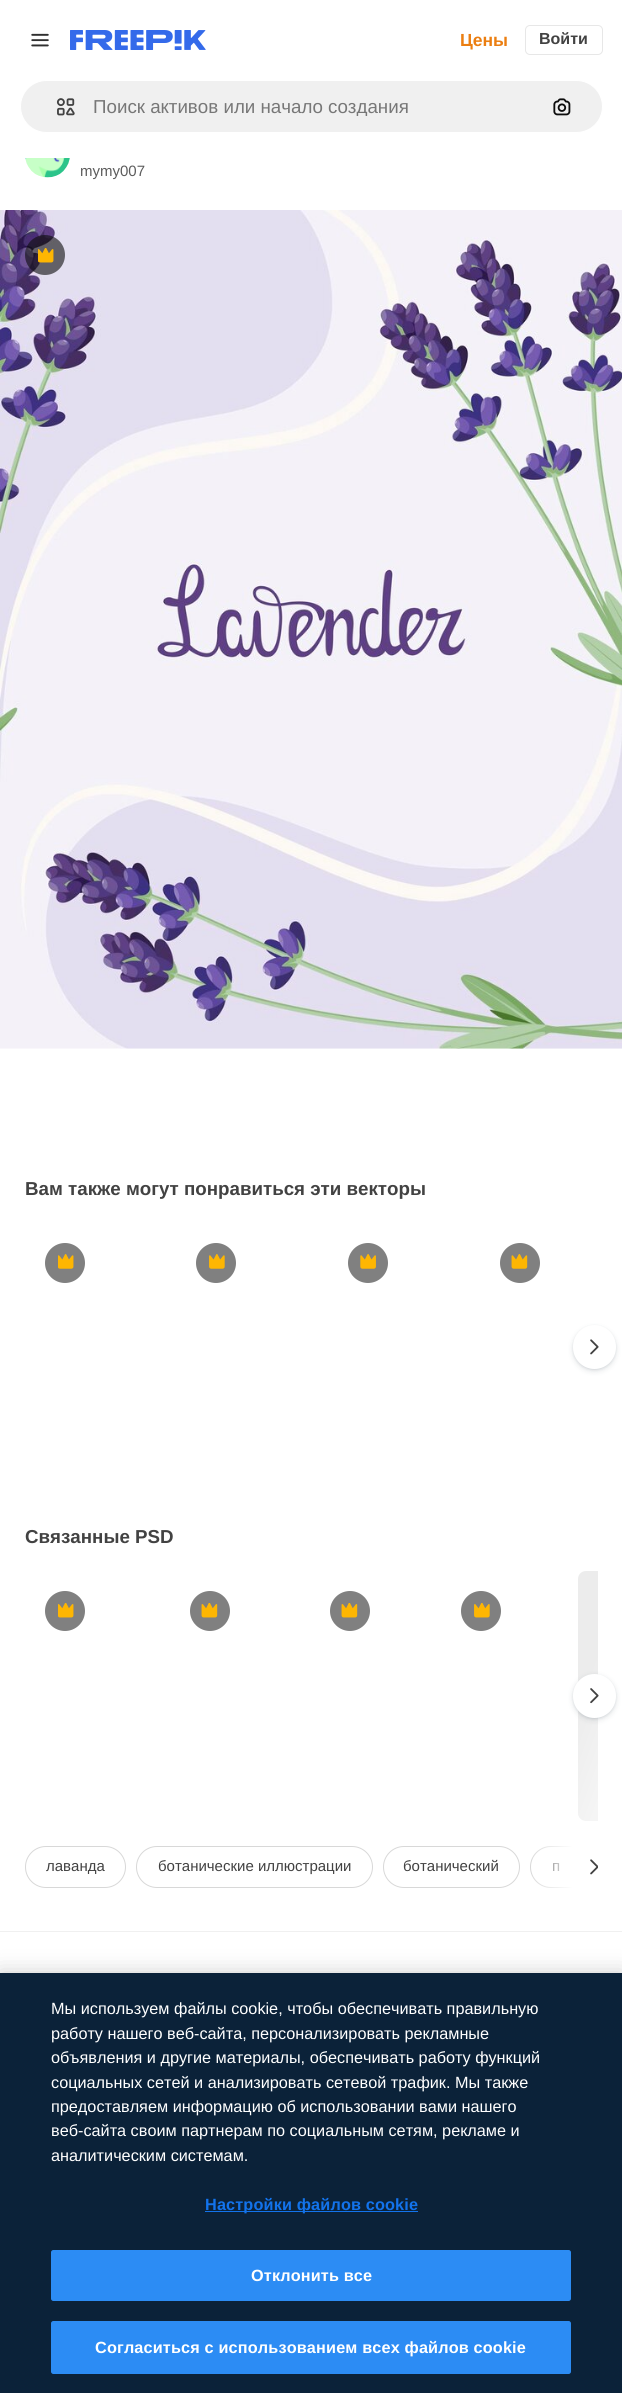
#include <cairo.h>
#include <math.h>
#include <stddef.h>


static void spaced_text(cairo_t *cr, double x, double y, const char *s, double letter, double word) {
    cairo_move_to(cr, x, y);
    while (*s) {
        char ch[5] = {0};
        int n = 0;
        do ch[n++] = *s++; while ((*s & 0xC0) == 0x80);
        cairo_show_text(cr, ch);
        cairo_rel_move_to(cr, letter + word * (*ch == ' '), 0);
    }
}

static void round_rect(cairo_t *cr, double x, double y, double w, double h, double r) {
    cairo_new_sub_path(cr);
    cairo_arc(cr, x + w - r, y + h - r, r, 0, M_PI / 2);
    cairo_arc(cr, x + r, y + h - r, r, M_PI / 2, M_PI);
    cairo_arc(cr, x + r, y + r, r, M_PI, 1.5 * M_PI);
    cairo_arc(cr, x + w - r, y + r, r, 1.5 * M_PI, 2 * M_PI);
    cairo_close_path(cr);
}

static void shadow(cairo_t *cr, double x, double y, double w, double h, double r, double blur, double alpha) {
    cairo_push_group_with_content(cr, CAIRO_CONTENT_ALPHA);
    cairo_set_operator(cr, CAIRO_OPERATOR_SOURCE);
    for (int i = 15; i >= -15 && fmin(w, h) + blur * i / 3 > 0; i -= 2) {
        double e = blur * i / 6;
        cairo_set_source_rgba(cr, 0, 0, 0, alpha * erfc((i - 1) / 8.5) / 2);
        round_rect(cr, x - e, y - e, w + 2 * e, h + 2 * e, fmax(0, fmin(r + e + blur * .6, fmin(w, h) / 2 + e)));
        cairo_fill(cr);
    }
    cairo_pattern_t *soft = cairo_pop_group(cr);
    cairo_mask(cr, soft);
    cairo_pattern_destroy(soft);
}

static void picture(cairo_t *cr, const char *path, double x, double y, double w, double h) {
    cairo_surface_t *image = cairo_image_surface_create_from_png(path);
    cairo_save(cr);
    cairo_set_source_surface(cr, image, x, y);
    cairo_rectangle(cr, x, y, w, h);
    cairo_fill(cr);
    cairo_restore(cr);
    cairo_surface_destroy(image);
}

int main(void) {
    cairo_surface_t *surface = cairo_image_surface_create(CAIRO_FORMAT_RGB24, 622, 2393);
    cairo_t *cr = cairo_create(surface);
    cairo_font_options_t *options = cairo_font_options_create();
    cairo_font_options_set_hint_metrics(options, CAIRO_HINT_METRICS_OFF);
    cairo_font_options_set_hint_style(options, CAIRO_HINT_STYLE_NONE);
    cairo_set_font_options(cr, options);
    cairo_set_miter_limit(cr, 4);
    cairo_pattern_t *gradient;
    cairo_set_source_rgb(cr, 1, 1, 1);
    cairo_paint(cr);
    picture(cr, "img1.png", 31, 33, 18, 14);
    picture(cr, "img2.png", 70, 30, 136, 20);
    cairo_select_font_face(cr, "Liberation Sans", CAIRO_FONT_SLANT_NORMAL, CAIRO_FONT_WEIGHT_BOLD);
    cairo_set_font_size(cr, 17.5);
    cairo_set_source_rgb(cr, 0.918, 0.494, 0.067);
    cairo_move_to(cr, 460, 46);
    cairo_show_text(cr, "Цены");
    round_rect(cr, 525.5, 25.5, 77, 29, 4.5);
    cairo_set_source_rgb(cr, 0.906, 0.906, 0.906);
    cairo_set_line_width(cr, 1);
    cairo_stroke(cr);
    cairo_set_font_size(cr, 16);
    cairo_set_source_rgb(cr, 0.259, 0.259, 0.259);
    cairo_move_to(cr, 539, 44);
    cairo_show_text(cr, "Войти");
    cairo_set_source_rgb(cr, 0.941, 0.941, 0.941);
    round_rect(cr, 20.5, 80.5, 582, 52, 26);
    cairo_fill_preserve(cr);
    cairo_set_source_rgb(cr, 1, 1, 1);
    cairo_stroke(cr);
    picture(cr, "img3.png", 56, 98, 19, 18);
    cairo_save(cr);
    cairo_rectangle(cr, 93, 95, 446, 21);
    cairo_clip(cr);
    cairo_select_font_face(cr, "Liberation Sans", CAIRO_FONT_SLANT_NORMAL, CAIRO_FONT_WEIGHT_NORMAL);
    cairo_set_font_size(cr, 18.75);
    cairo_set_source_rgb(cr, 0.467, 0.467, 0.467);
    cairo_move_to(cr, 93, 113);
    cairo_show_text(cr, "Поиск активов или начало создания");
    cairo_restore(cr);
    picture(cr, "img4.png", 553, 98, 18, 18);
    picture(cr, "img5.png", 25, 158, 45, 20);
    cairo_select_font_face(cr, "Liberation Sans", CAIRO_FONT_SLANT_NORMAL, CAIRO_FONT_WEIGHT_NORMAL);
    cairo_set_font_size(cr, 15);
    cairo_set_source_rgb(cr, 0.361, 0.361, 0.361);
    cairo_move_to(cr, 80, 176);
    cairo_show_text(cr, "mymy007");
    picture(cr, "img6.png", 0, 210, 622, 839);
    cairo_set_source_rgba(cr, 0.051, 0.051, 0.051, 0.6);
    cairo_arc(cr, 45, 255, 20, 0, 2 * M_PI);
    cairo_fill(cr);
    picture(cr, "img7.png", 38, 248, 16, 15);
    cairo_select_font_face(cr, "Liberation Sans", CAIRO_FONT_SLANT_NORMAL, CAIRO_FONT_WEIGHT_BOLD);
    cairo_set_font_size(cr, 18.75);
    cairo_set_source_rgb(cr, 0.259, 0.259, 0.259);
    cairo_move_to(cr, 25, 1195);
    cairo_show_text(cr, "Вам также могут понравиться эти векторы");
    cairo_set_source_rgb(cr, 0.502, 0.502, 0.502);
    cairo_new_path(cr);
    cairo_arc(cr, 65, 1263, 20, 0, 2 * M_PI);
    cairo_fill(cr);
    picture(cr, "img8.png", 58, 1254, 16, 15);
    cairo_arc(cr, 216, 1263, 20, 0, 2 * M_PI);
    cairo_fill(cr);
    picture(cr, "img9.png", 209, 1254, 16, 15);
    cairo_arc(cr, 368, 1263, 20, 0, 2 * M_PI);
    cairo_fill(cr);
    picture(cr, "img10.png", 360, 1254, 16, 15);
    cairo_arc(cr, 520, 1263, 20, 0, 2 * M_PI);
    cairo_fill(cr);
    picture(cr, "img11.png", 511, 1254, 17, 15);
    cairo_set_source_rgb(cr, 0.216, 0.286, 0.341);
    shadow(cr, 573, 1328, 43, 43, 21.5, 3, 0.15);
    shadow(cr, 573, 1326, 43, 44, 21.5, 1, 0.1);
    cairo_set_source_rgb(cr, 1, 1, 1);
    round_rect(cr, 573, 1325, 43, 44, 21.5);
    cairo_fill(cr);
    picture(cr, "img12.png", 590, 1339, 9, 16);
    cairo_set_source_rgb(cr, 0.259, 0.259, 0.259);
    cairo_move_to(cr, 25, 1543);
    cairo_show_text(cr, "Связанные PSD");
    cairo_set_source_rgb(cr, 0.502, 0.502, 0.502);
    cairo_new_path(cr);
    cairo_arc(cr, 65, 1611, 20, 0, 2 * M_PI);
    cairo_fill(cr);
    picture(cr, "img13.png", 58, 1603, 16, 15);
    cairo_arc(cr, 210, 1611, 20, 0, 2 * M_PI);
    cairo_fill(cr);
    picture(cr, "img14.png", 201, 1603, 17, 15);
    cairo_arc(cr, 350, 1611, 20, 0, 2 * M_PI);
    cairo_fill(cr);
    picture(cr, "img14.png", 341, 1603, 17, 15);
    cairo_arc(cr, 481, 1611, 20, 0, 2 * M_PI);
    cairo_fill(cr);
    picture(cr, "img15.png", 474, 1603, 16, 15);
    gradient = cairo_pattern_create_linear(567, 1601, 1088, 1791);
    cairo_pattern_add_color_stop_rgba(gradient, 0.08, 0.925, 0.925, 0.925, 1);
    cairo_pattern_add_color_stop_rgba(gradient, 0.18, 0.961, 0.961, 0.961, 1);
    cairo_pattern_add_color_stop_rgba(gradient, 0.33, 0.925, 0.925, 0.925, 1);
    cairo_set_source(cr, gradient);
    cairo_pattern_destroy(gradient);
    cairo_new_path(cr);
    cairo_move_to(cr, 586, 1571);
    cairo_line_to(cr, 598, 1571);
    cairo_line_to(cr, 598, 1821);
    cairo_line_to(cr, 586, 1821);
    cairo_curve_to(cr, 581.5, 1821, 578, 1817.5, 578, 1813);
    cairo_line_to(cr, 578, 1579);
    cairo_curve_to(cr, 578, 1574.5, 581.5, 1571, 586, 1571);
    cairo_close_path(cr);
    cairo_fill(cr);
    cairo_set_source_rgb(cr, 0.216, 0.286, 0.341);
    shadow(cr, 573, 1676, 43, 44, 21.5, 3, 0.15);
    shadow(cr, 573, 1675, 43, 44, 21.5, 1, 0.1);
    cairo_set_source_rgb(cr, 1, 1, 1);
    round_rect(cr, 573, 1674, 43, 44, 21.5);
    cairo_fill(cr);
    picture(cr, "img16.png", 590, 1688, 9, 16);
    round_rect(cr, 25.5, 1846.5, 100, 41, 20.5);
    cairo_set_source_rgb(cr, 0.847, 0.847, 0.847);
    cairo_stroke(cr);
    cairo_select_font_face(cr, "Liberation Sans", CAIRO_FONT_SLANT_NORMAL, CAIRO_FONT_WEIGHT_NORMAL);
    cairo_set_font_size(cr, 15);
    cairo_set_source_rgb(cr, 0.259, 0.259, 0.259);
    cairo_move_to(cr, 46, 1871);
    cairo_show_text(cr, "лаванда");
    round_rect(cr, 136.5, 1846.5, 236, 41, 20.5);
    cairo_set_source_rgb(cr, 0.847, 0.847, 0.847);
    cairo_stroke(cr);
    cairo_set_source_rgb(cr, 0.259, 0.259, 0.259);
    cairo_move_to(cr, 158, 1871);
    cairo_show_text(cr, "ботанические иллюстрации");
    round_rect(cr, 383.5, 1846.5, 136, 41, 20.5);
    cairo_set_source_rgb(cr, 0.847, 0.847, 0.847);
    cairo_stroke(cr);
    cairo_set_source_rgb(cr, 0.259, 0.259, 0.259);
    cairo_move_to(cr, 403, 1871);
    cairo_show_text(cr, "ботанический");
    cairo_save(cr);
    cairo_rectangle(cr, 25, 1846, 573, 42);
    cairo_clip(cr);
    round_rect(cr, 530.5, 1846.5, 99, 41, 20.5);
    cairo_set_source_rgb(cr, 0.847, 0.847, 0.847);
    cairo_stroke(cr);
    cairo_restore(cr);
    cairo_move_to(cr, 552, 1871);
    cairo_show_text(cr, "п");
    cairo_set_source_rgb(cr, 1, 1, 1);
    cairo_rectangle(cr, 573, 1846, 25, 42);
    cairo_fill(cr);
    gradient = cairo_pattern_create_linear(573, 1867, 529, 1867);
    cairo_pattern_add_color_stop_rgba(gradient, 0, 1, 1, 1, 1);
    cairo_pattern_add_color_stop_rgba(gradient, 1, 1, 1, 1, 0);
    cairo_set_source(cr, gradient);
    cairo_pattern_destroy(gradient);
    cairo_rectangle(cr, 532, 1846, 41, 42);
    cairo_fill(cr);
    picture(cr, "img17.png", 590, 1859, 8, 16);
    cairo_set_source_rgb(cr, 0.941, 0.941, 0.941);
    cairo_rectangle(cr, 0, 1931, 622, 1);
    cairo_fill(cr);
    cairo_set_source_rgb(cr, 0, 0, 0);
    shadow(cr, 0, 1973, 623, 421, 0, 11, 0.2);
    cairo_set_source_rgb(cr, 0.043, 0.133, 0.224);
    cairo_rectangle(cr, 0, 1973, 622, 420);
    cairo_fill(cr);
    cairo_set_font_size(cr, 16.25);
    cairo_set_source_rgb(cr, 1, 1, 1);
    cairo_move_to(cr, 51, 2014);
    cairo_show_text(cr, "Мы используем файлы cookie, чтобы обеспечивать правильную");
    cairo_move_to(cr, 51, 2039);
    cairo_show_text(cr, "работу нашего веб-сайта, персонализировать рекламные");
    cairo_move_to(cr, 51, 2063);
    cairo_show_text(cr, "объявления и другие материалы, обеспечивать работу функций");
    cairo_move_to(cr, 51, 2088);
    cairo_show_text(cr, "социальных сетей и анализировать сетевой трафик. Мы также");
    cairo_move_to(cr, 51, 2112);
    cairo_show_text(cr, "предоставляем информацию об использовании вами нашего");
    cairo_move_to(cr, 51, 2136);
    cairo_show_text(cr, "веб-сайта своим партнерам по социальным сетям, рекламе и");
    cairo_move_to(cr, 51, 2161);
    cairo_show_text(cr, "аналитическим системам.");
    cairo_set_source_rgb(cr, 0.071, 0.451, 0.922);
    cairo_rectangle(cr, 205, 2211, 213, 1);
    cairo_fill(cr);
    cairo_select_font_face(cr, "Liberation Sans", CAIRO_FONT_SLANT_NORMAL, CAIRO_FONT_WEIGHT_BOLD);
    spaced_text(cr, 205, 2210, "Настройки файлов cookie", 0.15, 0);
    cairo_set_source_rgb(cr, 0.173, 0.549, 0.957);
    round_rect(cr, 51.5, 2250.5, 519, 50, 2);
    cairo_fill_preserve(cr);
    cairo_stroke(cr);
    cairo_set_source_rgb(cr, 1, 1, 1);
    spaced_text(cr, 251, 2281, "Отклонить все", 0.15, 0);
    cairo_set_source_rgb(cr, 0.173, 0.549, 0.957);
    round_rect(cr, 51.5, 2321.5, 519, 52, 2);
    cairo_fill_preserve(cr);
    cairo_stroke(cr);
    cairo_set_source_rgb(cr, 1, 1, 1);
    spaced_text(cr, 95, 2353, "Согласиться с использованием всех файлов cookie", 0.15, 0);
    cairo_surface_write_to_png(surface, "page.png");
    cairo_font_options_destroy(options);
    cairo_destroy(cr);
    cairo_surface_destroy(surface);
    return 0;
}
